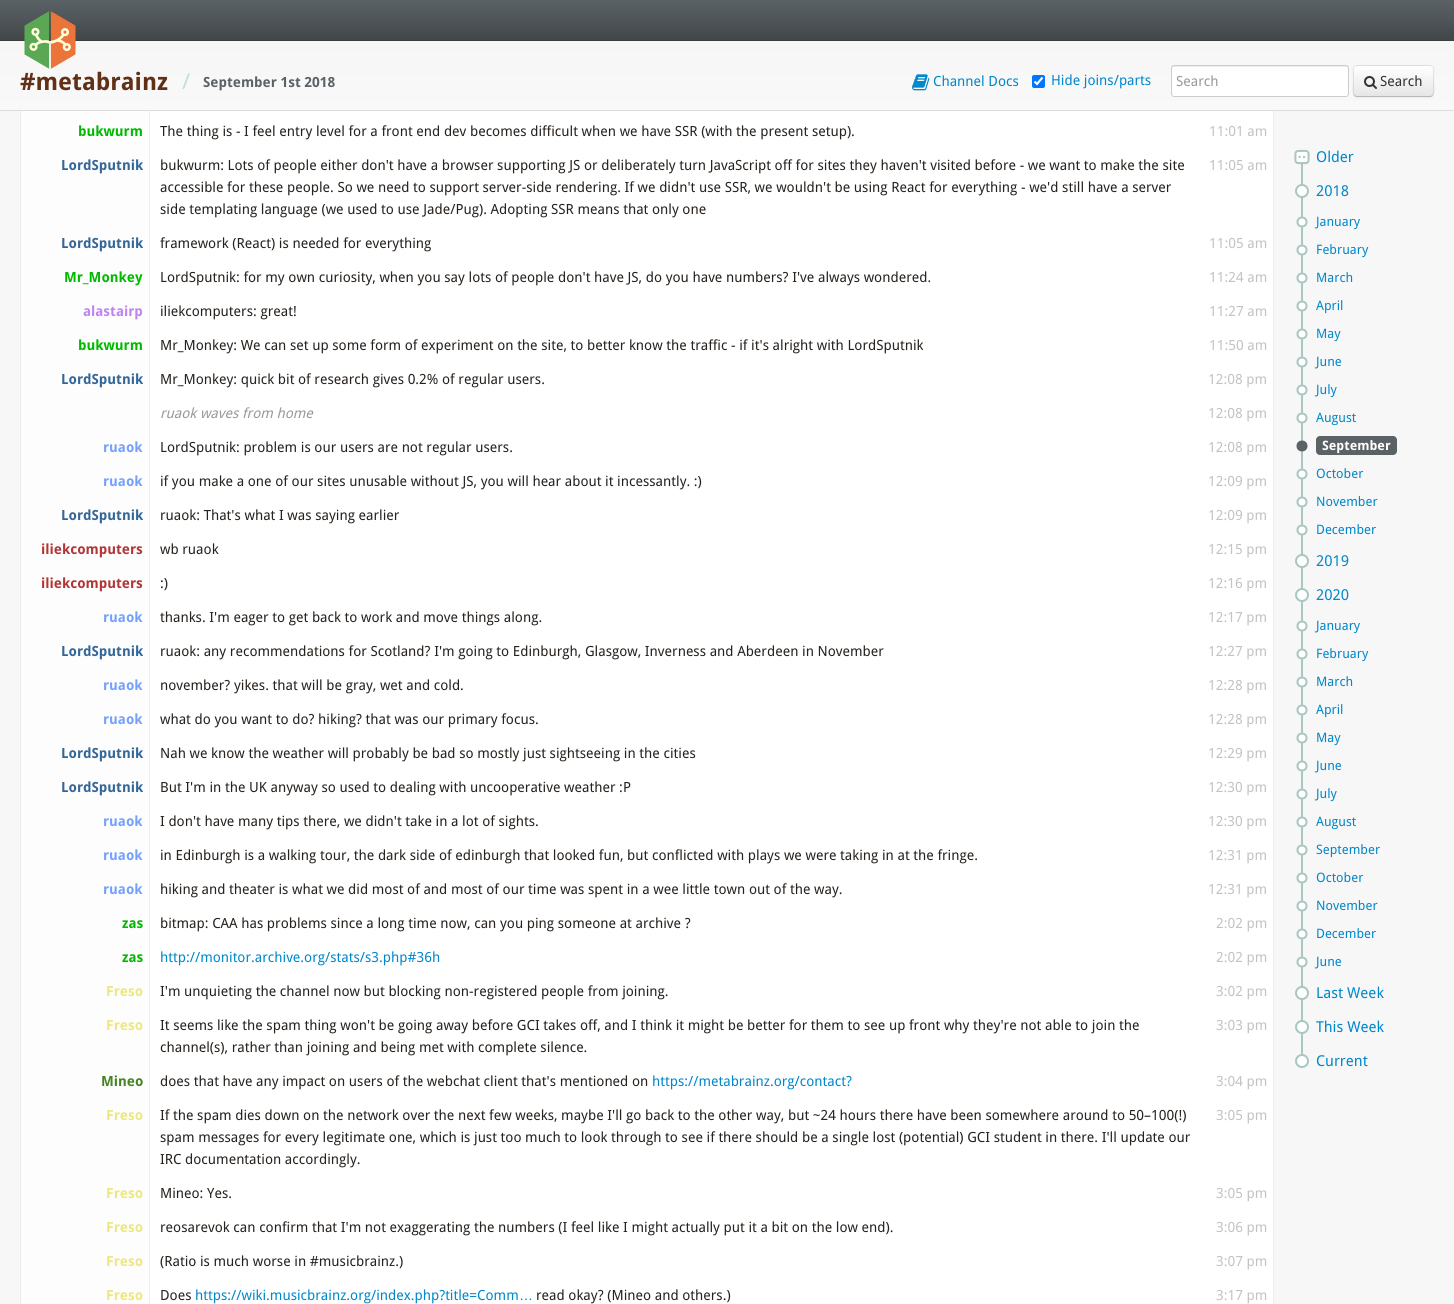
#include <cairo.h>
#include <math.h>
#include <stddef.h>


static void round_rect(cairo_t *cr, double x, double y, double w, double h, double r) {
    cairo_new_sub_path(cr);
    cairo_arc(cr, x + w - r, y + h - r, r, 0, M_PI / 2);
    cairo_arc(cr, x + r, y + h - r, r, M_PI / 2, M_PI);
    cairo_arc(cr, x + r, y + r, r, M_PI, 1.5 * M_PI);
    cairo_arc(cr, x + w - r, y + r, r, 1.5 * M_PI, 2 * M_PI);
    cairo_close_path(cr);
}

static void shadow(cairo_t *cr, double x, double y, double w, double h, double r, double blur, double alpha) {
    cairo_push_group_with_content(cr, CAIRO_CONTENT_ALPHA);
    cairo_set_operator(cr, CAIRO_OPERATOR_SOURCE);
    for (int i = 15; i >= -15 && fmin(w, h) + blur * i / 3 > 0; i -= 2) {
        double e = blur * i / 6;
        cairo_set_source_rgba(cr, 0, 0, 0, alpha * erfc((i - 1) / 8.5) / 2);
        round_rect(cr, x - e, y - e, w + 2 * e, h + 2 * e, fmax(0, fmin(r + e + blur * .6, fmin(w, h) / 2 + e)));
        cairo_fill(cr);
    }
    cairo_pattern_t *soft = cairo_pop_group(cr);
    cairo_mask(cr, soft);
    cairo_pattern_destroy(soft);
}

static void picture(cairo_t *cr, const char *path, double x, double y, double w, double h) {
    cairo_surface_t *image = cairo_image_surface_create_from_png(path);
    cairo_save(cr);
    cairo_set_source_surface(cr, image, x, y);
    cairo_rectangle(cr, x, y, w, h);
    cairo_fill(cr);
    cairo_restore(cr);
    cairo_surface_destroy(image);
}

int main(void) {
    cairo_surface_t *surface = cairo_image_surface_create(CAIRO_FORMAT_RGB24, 1454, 1304);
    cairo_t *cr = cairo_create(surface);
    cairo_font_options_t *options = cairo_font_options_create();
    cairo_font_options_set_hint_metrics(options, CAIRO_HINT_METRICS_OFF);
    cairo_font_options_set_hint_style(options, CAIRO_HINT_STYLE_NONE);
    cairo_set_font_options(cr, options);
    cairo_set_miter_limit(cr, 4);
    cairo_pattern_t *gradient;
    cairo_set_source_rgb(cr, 0.965, 0.965, 0.965);
    cairo_paint(cr);
    cairo_rectangle(cr, 20.5, -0.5, 1253, 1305);
    cairo_set_source_rgb(cr, 0.933, 0.933, 0.933);
    cairo_set_line_width(cr, 1);
    cairo_stroke(cr);
    gradient = cairo_pattern_create_linear(727, 0, 727, 40);
    cairo_pattern_add_color_stop_rgba(gradient, 0, 0.357, 0.384, 0.4, 1);
    cairo_pattern_add_color_stop_rgba(gradient, 1, 0.259, 0.278, 0.286, 1);
    cairo_set_source(cr, gradient);
    cairo_pattern_destroy(gradient);
    cairo_rectangle(cr, 0, 0, 1454, 40);
    cairo_fill(cr);
    cairo_set_source_rgb(cr, 0.227, 0.243, 0.247);
    cairo_rectangle(cr, 0, 40, 1454, 1);
    cairo_fill(cr);
    gradient = cairo_pattern_create_linear(727, 40, 727, 110);
    cairo_pattern_add_color_stop_rgba(gradient, 0, 0.965, 0.965, 0.965, 1);
    cairo_pattern_add_color_stop_rgba(gradient, 1, 0.976, 0.976, 0.976, 1);
    cairo_set_source(cr, gradient);
    cairo_pattern_destroy(gradient);
    cairo_rectangle(cr, 0, 41, 1454, 69);
    cairo_fill(cr);
    picture(cr, "img1.png", 24, 11, 52, 58);
    cairo_set_source_rgb(cr, 0.867, 0.867, 0.867);
    cairo_rectangle(cr, 0, 110, 1454, 1);
    cairo_fill(cr);
    cairo_select_font_face(cr, "Droid Sans", CAIRO_FONT_SLANT_NORMAL, CAIRO_FONT_WEIGHT_BOLD);
    cairo_set_font_size(cr, 24);
    cairo_set_source_rgb(cr, 0.38, 0.188, 0.086);
    cairo_move_to(cr, 20, 90);
    cairo_show_text(cr, "#metabrainz");
    cairo_select_font_face(cr, "Droid Sans", CAIRO_FONT_SLANT_NORMAL, CAIRO_FONT_WEIGHT_NORMAL);
    cairo_set_font_size(cr, 22);
    cairo_set_source_rgb(cr, 0.745, 0.882, 0.859);
    cairo_move_to(cr, 182, 89);
    cairo_show_text(cr, "/");
    cairo_select_font_face(cr, "Droid Sans", CAIRO_FONT_SLANT_NORMAL, CAIRO_FONT_WEIGHT_BOLD);
    cairo_set_font_size(cr, 14);
    cairo_set_source_rgb(cr, 0.357, 0.384, 0.4);
    cairo_move_to(cr, 203, 87);
    cairo_show_text(cr, "September 1st 2018");
    picture(cr, "img2.png", 912, 74, 18, 17);
    cairo_select_font_face(cr, "Droid Sans", CAIRO_FONT_SLANT_NORMAL, CAIRO_FONT_WEIGHT_NORMAL);
    cairo_set_source_rgb(cr, 0, 0.533, 0.8);
    cairo_move_to(cr, 933, 86);
    cairo_show_text(cr, "Channel Docs");
    cairo_set_source_rgb(cr, 0, 0.459, 1);
    round_rect(cr, 1032, 75, 13, 13, 2);
    cairo_fill(cr);
    cairo_new_path(cr);
    cairo_move_to(cr, 1034.5, 81.5);
    cairo_line_to(cr, 1037, 84);
    cairo_line_to(cr, 1042.5, 77.5);
    cairo_set_source_rgb(cr, 1, 1, 1);
    cairo_set_line_width(cr, 2.1);
    cairo_stroke(cr);
    cairo_set_source_rgb(cr, 0, 0.533, 0.8);
    cairo_move_to(cr, 1051, 85);
    cairo_show_text(cr, "Hide joins/parts");
    cairo_set_source_rgb(cr, 1, 1, 1);
    round_rect(cr, 1171, 65, 178, 32, 3);
    cairo_fill(cr);
    cairo_set_source_rgb(cr, 0.925, 0.925, 0.925);
    cairo_new_path(cr);
    cairo_move_to(cr, 1174, 67);
    cairo_line_to(cr, 1346, 67);
    cairo_curve_to(cr, 1347, 67, 1348, 68, 1348, 69);
    cairo_curve_to(cr, 1348, 68, 1348, 66, 1346, 66);
    cairo_line_to(cr, 1173, 66);
    cairo_curve_to(cr, 1172, 67, 1172, 68, 1172, 69);
    cairo_curve_to(cr, 1172, 68, 1173, 67, 1174, 67);
    cairo_close_path(cr);
    cairo_fill(cr);
    round_rect(cr, 1171.5, 65.5, 177, 31, 2.5);
    cairo_set_source_rgb(cr, 0.8, 0.8, 0.8);
    cairo_set_line_width(cr, 1);
    cairo_stroke(cr);
    cairo_set_source_rgb(cr, 0.6, 0.6, 0.6);
    cairo_move_to(cr, 1176, 86);
    cairo_show_text(cr, "Search");
    cairo_set_source_rgb(cr, 0, 0, 0);
    shadow(cr, 1353, 66, 81, 32, 4, 1, 0.05);
    cairo_set_source_rgb(cr, 0.961, 0.961, 0.961);
    round_rect(cr, 1353, 65, 81, 32, 4);
    cairo_fill(cr);
    cairo_save(cr);
    round_rect(cr, 1353, 65, 81, 32, 4);
    cairo_clip(cr);
    gradient = cairo_pattern_create_linear(1394, 66, 1394, 96);
    cairo_pattern_add_color_stop_rgba(gradient, 0, 1, 1, 1, 1);
    cairo_pattern_add_color_stop_rgba(gradient, 1, 0.902, 0.902, 0.902, 1);
    cairo_set_source(cr, gradient);
    cairo_pattern_destroy(gradient);
    cairo_rectangle(cr, 1353, 66, 81, 30);
    cairo_fill(cr);
    cairo_restore(cr);
    cairo_new_path(cr);
    cairo_move_to(cr, 1432.5, 95.5);
    cairo_curve_to(cr, 1432, 96, 1431, 96.5, 1430, 96.5);
    cairo_line_to(cr, 1357, 96.5);
    cairo_curve_to(cr, 1356, 96.5, 1355, 96, 1354.5, 95.5);
    cairo_set_source_rgb(cr, 0.722, 0.722, 0.722);
    cairo_stroke(cr);
    cairo_new_path(cr);
    cairo_move_to(cr, 1354.5, 95.5);
    cairo_curve_to(cr, 1352.5, 93, 1353.5, 84, 1353.5, 81);
    cairo_curve_to(cr, 1353.5, 63, 1351, 65.5, 1369, 65.5);
    cairo_line_to(cr, 1418, 65.5);
    cairo_curve_to(cr, 1436, 65.5, 1433.5, 63, 1433.5, 81);
    cairo_curve_to(cr, 1433.5, 84, 1434.5, 93, 1432.5, 95.5);
    cairo_set_source_rgba(cr, 0, 0, 0, 0.1);
    cairo_stroke(cr);
    picture(cr, "img3.png", 1364, 76, 13, 13);
    cairo_set_source_rgb(cr, 0.2, 0.2, 0.2);
    cairo_move_to(cr, 1380, 86);
    cairo_show_text(cr, "Search");
    cairo_set_source_rgb(cr, 0.992, 0.992, 0.992);
    cairo_rectangle(cr, 21, 111, 128, 1193);
    cairo_fill(cr);
    cairo_set_source_rgb(cr, 1, 1, 1);
    cairo_rectangle(cr, 150, 111, 1123, 1193);
    cairo_fill(cr);
    cairo_set_source_rgb(cr, 0.933, 0.933, 0.933);
    cairo_rectangle(cr, 149, 111, 1, 1193);
    cairo_fill(cr);
    cairo_select_font_face(cr, "Droid Sans", CAIRO_FONT_SLANT_NORMAL, CAIRO_FONT_WEIGHT_BOLD);
    cairo_set_source_rgb(cr, 0, 0.729, 0);
    cairo_move_to(cr, 78, 136);
    cairo_show_text(cr, "bukwurm");
    cairo_select_font_face(cr, "Droid Sans", CAIRO_FONT_SLANT_NORMAL, CAIRO_FONT_WEIGHT_NORMAL);
    cairo_set_source_rgb(cr, 0.153, 0.133, 0.118);
    cairo_move_to(cr, 160, 136);
    cairo_show_text(cr, "The thing is - I feel entry level for a front end dev becomes difficult when we have SSR (with the present setup).");
    cairo_set_source_rgb(cr, 0.765, 0.765, 0.765);
    cairo_move_to(cr, 1209, 136);
    cairo_show_text(cr, "11:01 am");
    cairo_select_font_face(cr, "Droid Sans", CAIRO_FONT_SLANT_NORMAL, CAIRO_FONT_WEIGHT_BOLD);
    cairo_set_source_rgb(cr, 0.2, 0.4, 0.6);
    cairo_move_to(cr, 61, 170);
    cairo_show_text(cr, "LordSputnik");
    cairo_select_font_face(cr, "Droid Sans", CAIRO_FONT_SLANT_NORMAL, CAIRO_FONT_WEIGHT_NORMAL);
    cairo_set_source_rgb(cr, 0.153, 0.133, 0.118);
    cairo_move_to(cr, 160, 170);
    cairo_show_text(cr, "bukwurm: Lots of people either don't have a browser supporting JS or deliberately turn JavaScript off for sites they haven't visited before - we want to make the site");
    cairo_move_to(cr, 160, 192);
    cairo_show_text(cr, "accessible for these people. So we need to support server-side rendering. If we didn't use SSR, we wouldn't be using React for everything - we'd still have a server");
    cairo_move_to(cr, 160, 214);
    cairo_show_text(cr, "side templating language (we used to use Jade/Pug). Adopting SSR means that only one");
    cairo_set_source_rgb(cr, 0.765, 0.765, 0.765);
    cairo_move_to(cr, 1209, 170);
    cairo_show_text(cr, "11:05 am");
    cairo_select_font_face(cr, "Droid Sans", CAIRO_FONT_SLANT_NORMAL, CAIRO_FONT_WEIGHT_BOLD);
    cairo_set_source_rgb(cr, 0.2, 0.4, 0.6);
    cairo_move_to(cr, 61, 248);
    cairo_show_text(cr, "LordSputnik");
    cairo_select_font_face(cr, "Droid Sans", CAIRO_FONT_SLANT_NORMAL, CAIRO_FONT_WEIGHT_NORMAL);
    cairo_set_source_rgb(cr, 0.153, 0.133, 0.118);
    cairo_move_to(cr, 160, 248);
    cairo_show_text(cr, "framework (React) is needed for everything");
    cairo_set_source_rgb(cr, 0.765, 0.765, 0.765);
    cairo_move_to(cr, 1209, 248);
    cairo_show_text(cr, "11:05 am");
    cairo_select_font_face(cr, "Droid Sans", CAIRO_FONT_SLANT_NORMAL, CAIRO_FONT_WEIGHT_BOLD);
    cairo_set_source_rgb(cr, 0, 0.729, 0);
    cairo_move_to(cr, 64, 282);
    cairo_show_text(cr, "Mr_Monkey");
    cairo_select_font_face(cr, "Droid Sans", CAIRO_FONT_SLANT_NORMAL, CAIRO_FONT_WEIGHT_NORMAL);
    cairo_set_source_rgb(cr, 0.153, 0.133, 0.118);
    cairo_move_to(cr, 160, 282);
    cairo_show_text(cr, "LordSputnik: for my own curiosity, when you say lots of people don't have JS, do you have numbers? I've always wondered.");
    cairo_set_source_rgb(cr, 0.765, 0.765, 0.765);
    cairo_move_to(cr, 1209, 282);
    cairo_show_text(cr, "11:24 am");
    cairo_select_font_face(cr, "Droid Sans", CAIRO_FONT_SLANT_NORMAL, CAIRO_FONT_WEIGHT_BOLD);
    cairo_set_source_rgb(cr, 0.753, 0.514, 0.949);
    cairo_move_to(cr, 83, 316);
    cairo_show_text(cr, "alastairp");
    cairo_select_font_face(cr, "Droid Sans", CAIRO_FONT_SLANT_NORMAL, CAIRO_FONT_WEIGHT_NORMAL);
    cairo_set_source_rgb(cr, 0.153, 0.133, 0.118);
    cairo_move_to(cr, 160, 316);
    cairo_show_text(cr, "iliekcomputers: great!");
    cairo_set_source_rgb(cr, 0.765, 0.765, 0.765);
    cairo_move_to(cr, 1209, 316);
    cairo_show_text(cr, "11:27 am");
    cairo_select_font_face(cr, "Droid Sans", CAIRO_FONT_SLANT_NORMAL, CAIRO_FONT_WEIGHT_BOLD);
    cairo_set_source_rgb(cr, 0, 0.729, 0);
    cairo_move_to(cr, 78, 350);
    cairo_show_text(cr, "bukwurm");
    cairo_select_font_face(cr, "Droid Sans", CAIRO_FONT_SLANT_NORMAL, CAIRO_FONT_WEIGHT_NORMAL);
    cairo_set_source_rgb(cr, 0.153, 0.133, 0.118);
    cairo_move_to(cr, 160, 350);
    cairo_show_text(cr, "Mr_Monkey: We can set up some form of experiment on the site, to better know the traffic - if it's alright with LordSputnik");
    cairo_set_source_rgb(cr, 0.765, 0.765, 0.765);
    cairo_move_to(cr, 1209, 350);
    cairo_show_text(cr, "11:50 am");
    cairo_select_font_face(cr, "Droid Sans", CAIRO_FONT_SLANT_NORMAL, CAIRO_FONT_WEIGHT_BOLD);
    cairo_set_source_rgb(cr, 0.2, 0.4, 0.6);
    cairo_move_to(cr, 61, 384);
    cairo_show_text(cr, "LordSputnik");
    cairo_select_font_face(cr, "Droid Sans", CAIRO_FONT_SLANT_NORMAL, CAIRO_FONT_WEIGHT_NORMAL);
    cairo_set_source_rgb(cr, 0.153, 0.133, 0.118);
    cairo_move_to(cr, 160, 384);
    cairo_show_text(cr, "Mr_Monkey: quick bit of research gives 0.2% of regular users.");
    cairo_set_source_rgb(cr, 0.765, 0.765, 0.765);
    cairo_move_to(cr, 1208, 384);
    cairo_show_text(cr, "12:08 pm");
    cairo_select_font_face(cr, "Droid Sans", CAIRO_FONT_SLANT_ITALIC, CAIRO_FONT_WEIGHT_NORMAL);
    cairo_set_source_rgb(cr, 0.6, 0.6, 0.6);
    cairo_move_to(cr, 160, 418);
    cairo_show_text(cr, "ruaok waves from home");
    cairo_select_font_face(cr, "Droid Sans", CAIRO_FONT_SLANT_NORMAL, CAIRO_FONT_WEIGHT_NORMAL);
    cairo_set_source_rgb(cr, 0.765, 0.765, 0.765);
    cairo_move_to(cr, 1208, 418);
    cairo_show_text(cr, "12:08 pm");
    cairo_select_font_face(cr, "Droid Sans", CAIRO_FONT_SLANT_NORMAL, CAIRO_FONT_WEIGHT_BOLD);
    cairo_set_source_rgb(cr, 0.459, 0.631, 0.984);
    cairo_move_to(cr, 103, 452);
    cairo_show_text(cr, "ruaok");
    cairo_select_font_face(cr, "Droid Sans", CAIRO_FONT_SLANT_NORMAL, CAIRO_FONT_WEIGHT_NORMAL);
    cairo_set_source_rgb(cr, 0.153, 0.133, 0.118);
    cairo_move_to(cr, 160, 452);
    cairo_show_text(cr, "LordSputnik: problem is our users are not regular users.");
    cairo_set_source_rgb(cr, 0.765, 0.765, 0.765);
    cairo_move_to(cr, 1208, 452);
    cairo_show_text(cr, "12:08 pm");
    cairo_select_font_face(cr, "Droid Sans", CAIRO_FONT_SLANT_NORMAL, CAIRO_FONT_WEIGHT_BOLD);
    cairo_set_source_rgb(cr, 0.459, 0.631, 0.984);
    cairo_move_to(cr, 103, 486);
    cairo_show_text(cr, "ruaok");
    cairo_select_font_face(cr, "Droid Sans", CAIRO_FONT_SLANT_NORMAL, CAIRO_FONT_WEIGHT_NORMAL);
    cairo_set_source_rgb(cr, 0.153, 0.133, 0.118);
    cairo_move_to(cr, 160, 486);
    cairo_show_text(cr, "if you make a one of our sites unusable without JS, you will hear about it incessantly. :)");
    cairo_set_source_rgb(cr, 0.765, 0.765, 0.765);
    cairo_move_to(cr, 1208, 486);
    cairo_show_text(cr, "12:09 pm");
    cairo_select_font_face(cr, "Droid Sans", CAIRO_FONT_SLANT_NORMAL, CAIRO_FONT_WEIGHT_BOLD);
    cairo_set_source_rgb(cr, 0.2, 0.4, 0.6);
    cairo_move_to(cr, 61, 520);
    cairo_show_text(cr, "LordSputnik");
    cairo_select_font_face(cr, "Droid Sans", CAIRO_FONT_SLANT_NORMAL, CAIRO_FONT_WEIGHT_NORMAL);
    cairo_set_source_rgb(cr, 0.153, 0.133, 0.118);
    cairo_move_to(cr, 160, 520);
    cairo_show_text(cr, "ruaok: That's what I was saying earlier");
    cairo_set_source_rgb(cr, 0.765, 0.765, 0.765);
    cairo_move_to(cr, 1208, 520);
    cairo_show_text(cr, "12:09 pm");
    cairo_select_font_face(cr, "Droid Sans", CAIRO_FONT_SLANT_NORMAL, CAIRO_FONT_WEIGHT_BOLD);
    cairo_set_source_rgb(cr, 0.694, 0.212, 0.216);
    cairo_move_to(cr, 41, 554);
    cairo_show_text(cr, "iliekcomputers");
    cairo_select_font_face(cr, "Droid Sans", CAIRO_FONT_SLANT_NORMAL, CAIRO_FONT_WEIGHT_NORMAL);
    cairo_set_source_rgb(cr, 0.153, 0.133, 0.118);
    cairo_move_to(cr, 160, 554);
    cairo_show_text(cr, "wb ruaok");
    cairo_set_source_rgb(cr, 0.765, 0.765, 0.765);
    cairo_move_to(cr, 1208, 554);
    cairo_show_text(cr, "12:15 pm");
    cairo_select_font_face(cr, "Droid Sans", CAIRO_FONT_SLANT_NORMAL, CAIRO_FONT_WEIGHT_BOLD);
    cairo_set_source_rgb(cr, 0.694, 0.212, 0.216);
    cairo_move_to(cr, 41, 588);
    cairo_show_text(cr, "iliekcomputers");
    cairo_select_font_face(cr, "Droid Sans", CAIRO_FONT_SLANT_NORMAL, CAIRO_FONT_WEIGHT_NORMAL);
    cairo_set_source_rgb(cr, 0.153, 0.133, 0.118);
    cairo_move_to(cr, 160, 588);
    cairo_show_text(cr, ":)");
    cairo_set_source_rgb(cr, 0.765, 0.765, 0.765);
    cairo_move_to(cr, 1208, 588);
    cairo_show_text(cr, "12:16 pm");
    cairo_select_font_face(cr, "Droid Sans", CAIRO_FONT_SLANT_NORMAL, CAIRO_FONT_WEIGHT_BOLD);
    cairo_set_source_rgb(cr, 0.459, 0.631, 0.984);
    cairo_move_to(cr, 103, 622);
    cairo_show_text(cr, "ruaok");
    cairo_select_font_face(cr, "Droid Sans", CAIRO_FONT_SLANT_NORMAL, CAIRO_FONT_WEIGHT_NORMAL);
    cairo_set_source_rgb(cr, 0.153, 0.133, 0.118);
    cairo_move_to(cr, 160, 622);
    cairo_show_text(cr, "thanks. I'm eager to get back to work and move things along.");
    cairo_set_source_rgb(cr, 0.765, 0.765, 0.765);
    cairo_move_to(cr, 1208, 622);
    cairo_show_text(cr, "12:17 pm");
    cairo_select_font_face(cr, "Droid Sans", CAIRO_FONT_SLANT_NORMAL, CAIRO_FONT_WEIGHT_BOLD);
    cairo_set_source_rgb(cr, 0.2, 0.4, 0.6);
    cairo_move_to(cr, 61, 656);
    cairo_show_text(cr, "LordSputnik");
    cairo_select_font_face(cr, "Droid Sans", CAIRO_FONT_SLANT_NORMAL, CAIRO_FONT_WEIGHT_NORMAL);
    cairo_set_source_rgb(cr, 0.153, 0.133, 0.118);
    cairo_move_to(cr, 160, 656);
    cairo_show_text(cr, "ruaok: any recommendations for Scotland? I'm going to Edinburgh, Glasgow, Inverness and Aberdeen in November");
    cairo_set_source_rgb(cr, 0.765, 0.765, 0.765);
    cairo_move_to(cr, 1208, 656);
    cairo_show_text(cr, "12:27 pm");
    cairo_select_font_face(cr, "Droid Sans", CAIRO_FONT_SLANT_NORMAL, CAIRO_FONT_WEIGHT_BOLD);
    cairo_set_source_rgb(cr, 0.459, 0.631, 0.984);
    cairo_move_to(cr, 103, 690);
    cairo_show_text(cr, "ruaok");
    cairo_select_font_face(cr, "Droid Sans", CAIRO_FONT_SLANT_NORMAL, CAIRO_FONT_WEIGHT_NORMAL);
    cairo_set_source_rgb(cr, 0.153, 0.133, 0.118);
    cairo_move_to(cr, 160, 690);
    cairo_show_text(cr, "november? yikes. that will be gray, wet and cold.");
    cairo_set_source_rgb(cr, 0.765, 0.765, 0.765);
    cairo_move_to(cr, 1208, 690);
    cairo_show_text(cr, "12:28 pm");
    cairo_select_font_face(cr, "Droid Sans", CAIRO_FONT_SLANT_NORMAL, CAIRO_FONT_WEIGHT_BOLD);
    cairo_set_source_rgb(cr, 0.459, 0.631, 0.984);
    cairo_move_to(cr, 103, 724);
    cairo_show_text(cr, "ruaok");
    cairo_select_font_face(cr, "Droid Sans", CAIRO_FONT_SLANT_NORMAL, CAIRO_FONT_WEIGHT_NORMAL);
    cairo_set_source_rgb(cr, 0.153, 0.133, 0.118);
    cairo_move_to(cr, 160, 724);
    cairo_show_text(cr, "what do you want to do? hiking? that was our primary focus.");
    cairo_set_source_rgb(cr, 0.765, 0.765, 0.765);
    cairo_move_to(cr, 1208, 724);
    cairo_show_text(cr, "12:28 pm");
    cairo_select_font_face(cr, "Droid Sans", CAIRO_FONT_SLANT_NORMAL, CAIRO_FONT_WEIGHT_BOLD);
    cairo_set_source_rgb(cr, 0.2, 0.4, 0.6);
    cairo_move_to(cr, 61, 758);
    cairo_show_text(cr, "LordSputnik");
    cairo_select_font_face(cr, "Droid Sans", CAIRO_FONT_SLANT_NORMAL, CAIRO_FONT_WEIGHT_NORMAL);
    cairo_set_source_rgb(cr, 0.153, 0.133, 0.118);
    cairo_move_to(cr, 160, 758);
    cairo_show_text(cr, "Nah we know the weather will probably be bad so mostly just sightseeing in the cities");
    cairo_set_source_rgb(cr, 0.765, 0.765, 0.765);
    cairo_move_to(cr, 1208, 758);
    cairo_show_text(cr, "12:29 pm");
    cairo_select_font_face(cr, "Droid Sans", CAIRO_FONT_SLANT_NORMAL, CAIRO_FONT_WEIGHT_BOLD);
    cairo_set_source_rgb(cr, 0.2, 0.4, 0.6);
    cairo_move_to(cr, 61, 792);
    cairo_show_text(cr, "LordSputnik");
    cairo_select_font_face(cr, "Droid Sans", CAIRO_FONT_SLANT_NORMAL, CAIRO_FONT_WEIGHT_NORMAL);
    cairo_set_source_rgb(cr, 0.153, 0.133, 0.118);
    cairo_move_to(cr, 160, 792);
    cairo_show_text(cr, "But I'm in the UK anyway so used to dealing with uncooperative weather :P");
    cairo_set_source_rgb(cr, 0.765, 0.765, 0.765);
    cairo_move_to(cr, 1208, 792);
    cairo_show_text(cr, "12:30 pm");
    cairo_select_font_face(cr, "Droid Sans", CAIRO_FONT_SLANT_NORMAL, CAIRO_FONT_WEIGHT_BOLD);
    cairo_set_source_rgb(cr, 0.459, 0.631, 0.984);
    cairo_move_to(cr, 103, 826);
    cairo_show_text(cr, "ruaok");
    cairo_select_font_face(cr, "Droid Sans", CAIRO_FONT_SLANT_NORMAL, CAIRO_FONT_WEIGHT_NORMAL);
    cairo_set_source_rgb(cr, 0.153, 0.133, 0.118);
    cairo_move_to(cr, 160, 826);
    cairo_show_text(cr, "I don't have many tips there, we didn't take in a lot of sights.");
    cairo_set_source_rgb(cr, 0.765, 0.765, 0.765);
    cairo_move_to(cr, 1208, 826);
    cairo_show_text(cr, "12:30 pm");
    cairo_select_font_face(cr, "Droid Sans", CAIRO_FONT_SLANT_NORMAL, CAIRO_FONT_WEIGHT_BOLD);
    cairo_set_source_rgb(cr, 0.459, 0.631, 0.984);
    cairo_move_to(cr, 103, 860);
    cairo_show_text(cr, "ruaok");
    cairo_select_font_face(cr, "Droid Sans", CAIRO_FONT_SLANT_NORMAL, CAIRO_FONT_WEIGHT_NORMAL);
    cairo_set_source_rgb(cr, 0.153, 0.133, 0.118);
    cairo_move_to(cr, 160, 860);
    cairo_show_text(cr, "in Edinburgh is a walking tour, the dark side of edinburgh that looked fun, but conflicted with plays we were taking in at the fringe.");
    cairo_set_source_rgb(cr, 0.765, 0.765, 0.765);
    cairo_move_to(cr, 1208, 860);
    cairo_show_text(cr, "12:31 pm");
    cairo_select_font_face(cr, "Droid Sans", CAIRO_FONT_SLANT_NORMAL, CAIRO_FONT_WEIGHT_BOLD);
    cairo_set_source_rgb(cr, 0.459, 0.631, 0.984);
    cairo_move_to(cr, 103, 894);
    cairo_show_text(cr, "ruaok");
    cairo_select_font_face(cr, "Droid Sans", CAIRO_FONT_SLANT_NORMAL, CAIRO_FONT_WEIGHT_NORMAL);
    cairo_set_source_rgb(cr, 0.153, 0.133, 0.118);
    cairo_move_to(cr, 160, 894);
    cairo_show_text(cr, "hiking and theater is what we did most of and most of our time was spent in a wee little town out of the way.");
    cairo_set_source_rgb(cr, 0.765, 0.765, 0.765);
    cairo_move_to(cr, 1208, 894);
    cairo_show_text(cr, "12:31 pm");
    cairo_select_font_face(cr, "Droid Sans", CAIRO_FONT_SLANT_NORMAL, CAIRO_FONT_WEIGHT_BOLD);
    cairo_set_source_rgb(cr, 0, 0.729, 0);
    cairo_move_to(cr, 122, 928);
    cairo_show_text(cr, "zas");
    cairo_select_font_face(cr, "Droid Sans", CAIRO_FONT_SLANT_NORMAL, CAIRO_FONT_WEIGHT_NORMAL);
    cairo_set_source_rgb(cr, 0.153, 0.133, 0.118);
    cairo_move_to(cr, 160, 928);
    cairo_show_text(cr, "bitmap: CAA has problems since a long time now, can you ping someone at archive ?");
    cairo_set_source_rgb(cr, 0.765, 0.765, 0.765);
    cairo_move_to(cr, 1216, 928);
    cairo_show_text(cr, "2:02 pm");
    cairo_select_font_face(cr, "Droid Sans", CAIRO_FONT_SLANT_NORMAL, CAIRO_FONT_WEIGHT_BOLD);
    cairo_set_source_rgb(cr, 0, 0.729, 0);
    cairo_move_to(cr, 122, 962);
    cairo_show_text(cr, "zas");
    cairo_select_font_face(cr, "Droid Sans", CAIRO_FONT_SLANT_NORMAL, CAIRO_FONT_WEIGHT_NORMAL);
    cairo_set_source_rgb(cr, 0, 0.533, 0.8);
    cairo_move_to(cr, 160, 962);
    cairo_show_text(cr, "http://monitor.archive.org/stats/s3.php#36h");
    cairo_set_source_rgb(cr, 0.765, 0.765, 0.765);
    cairo_move_to(cr, 1216, 962);
    cairo_show_text(cr, "2:02 pm");
    cairo_select_font_face(cr, "Droid Sans", CAIRO_FONT_SLANT_NORMAL, CAIRO_FONT_WEIGHT_BOLD);
    cairo_set_source_rgb(cr, 0.918, 0.91, 0.494);
    cairo_move_to(cr, 106, 996);
    cairo_show_text(cr, "Freso");
    cairo_select_font_face(cr, "Droid Sans", CAIRO_FONT_SLANT_NORMAL, CAIRO_FONT_WEIGHT_NORMAL);
    cairo_set_source_rgb(cr, 0.153, 0.133, 0.118);
    cairo_move_to(cr, 160, 996);
    cairo_show_text(cr, "I'm unquieting the channel now but blocking non-registered people from joining.");
    cairo_set_source_rgb(cr, 0.765, 0.765, 0.765);
    cairo_move_to(cr, 1216, 996);
    cairo_show_text(cr, "3:02 pm");
    cairo_select_font_face(cr, "Droid Sans", CAIRO_FONT_SLANT_NORMAL, CAIRO_FONT_WEIGHT_BOLD);
    cairo_set_source_rgb(cr, 0.918, 0.91, 0.494);
    cairo_move_to(cr, 106, 1030);
    cairo_show_text(cr, "Freso");
    cairo_select_font_face(cr, "Droid Sans", CAIRO_FONT_SLANT_NORMAL, CAIRO_FONT_WEIGHT_NORMAL);
    cairo_set_source_rgb(cr, 0.153, 0.133, 0.118);
    cairo_move_to(cr, 160, 1030);
    cairo_show_text(cr, "It seems like the spam thing won't be going away before GCI takes off, and I think it might be better for them to see up front why they're not able to join the");
    cairo_move_to(cr, 160, 1052);
    cairo_show_text(cr, "channel(s), rather than joining and being met with complete silence.");
    cairo_set_source_rgb(cr, 0.765, 0.765, 0.765);
    cairo_move_to(cr, 1216, 1030);
    cairo_show_text(cr, "3:03 pm");
    cairo_select_font_face(cr, "Droid Sans", CAIRO_FONT_SLANT_NORMAL, CAIRO_FONT_WEIGHT_BOLD);
    cairo_set_source_rgb(cr, 0.271, 0.522, 0.129);
    cairo_move_to(cr, 101, 1086);
    cairo_show_text(cr, "Mineo");
    cairo_select_font_face(cr, "Droid Sans", CAIRO_FONT_SLANT_NORMAL, CAIRO_FONT_WEIGHT_NORMAL);
    cairo_set_source_rgb(cr, 0.153, 0.133, 0.118);
    cairo_move_to(cr, 160, 1086);
    cairo_show_text(cr, "does that have any impact on users of the webchat client that's mentioned on");
    cairo_set_source_rgb(cr, 0, 0.533, 0.8);
    cairo_move_to(cr, 652, 1086);
    cairo_show_text(cr, "https://metabrainz.org/contact?");
    cairo_set_source_rgb(cr, 0.765, 0.765, 0.765);
    cairo_move_to(cr, 1216, 1086);
    cairo_show_text(cr, "3:04 pm");
    cairo_select_font_face(cr, "Droid Sans", CAIRO_FONT_SLANT_NORMAL, CAIRO_FONT_WEIGHT_BOLD);
    cairo_set_source_rgb(cr, 0.918, 0.91, 0.494);
    cairo_move_to(cr, 106, 1120);
    cairo_show_text(cr, "Freso");
    cairo_select_font_face(cr, "Droid Sans", CAIRO_FONT_SLANT_NORMAL, CAIRO_FONT_WEIGHT_NORMAL);
    cairo_set_source_rgb(cr, 0.153, 0.133, 0.118);
    cairo_move_to(cr, 160, 1120);
    cairo_show_text(cr, "If the spam dies down on the network over the next few weeks, maybe I'll go back to the other way, but ~24 hours there have been somewhere around to 50–100(!)");
    cairo_move_to(cr, 160, 1142);
    cairo_show_text(cr, "spam messages for every legitimate one, which is just too much to look through to see if there should be a single lost (potential) GCI student in there. I'll update our");
    cairo_move_to(cr, 160, 1164);
    cairo_show_text(cr, "IRC documentation accordingly.");
    cairo_set_source_rgb(cr, 0.765, 0.765, 0.765);
    cairo_move_to(cr, 1216, 1120);
    cairo_show_text(cr, "3:05 pm");
    cairo_select_font_face(cr, "Droid Sans", CAIRO_FONT_SLANT_NORMAL, CAIRO_FONT_WEIGHT_BOLD);
    cairo_set_source_rgb(cr, 0.918, 0.91, 0.494);
    cairo_move_to(cr, 106, 1198);
    cairo_show_text(cr, "Freso");
    cairo_select_font_face(cr, "Droid Sans", CAIRO_FONT_SLANT_NORMAL, CAIRO_FONT_WEIGHT_NORMAL);
    cairo_set_source_rgb(cr, 0.153, 0.133, 0.118);
    cairo_move_to(cr, 160, 1198);
    cairo_show_text(cr, "Mineo: Yes.");
    cairo_set_source_rgb(cr, 0.765, 0.765, 0.765);
    cairo_move_to(cr, 1216, 1198);
    cairo_show_text(cr, "3:05 pm");
    cairo_select_font_face(cr, "Droid Sans", CAIRO_FONT_SLANT_NORMAL, CAIRO_FONT_WEIGHT_BOLD);
    cairo_set_source_rgb(cr, 0.918, 0.91, 0.494);
    cairo_move_to(cr, 106, 1232);
    cairo_show_text(cr, "Freso");
    cairo_select_font_face(cr, "Droid Sans", CAIRO_FONT_SLANT_NORMAL, CAIRO_FONT_WEIGHT_NORMAL);
    cairo_set_source_rgb(cr, 0.153, 0.133, 0.118);
    cairo_move_to(cr, 160, 1232);
    cairo_show_text(cr, "reosarevok can confirm that I'm not exaggerating the numbers (I feel like I might actually put it a bit on the low end).");
    cairo_set_source_rgb(cr, 0.765, 0.765, 0.765);
    cairo_move_to(cr, 1216, 1232);
    cairo_show_text(cr, "3:06 pm");
    cairo_select_font_face(cr, "Droid Sans", CAIRO_FONT_SLANT_NORMAL, CAIRO_FONT_WEIGHT_BOLD);
    cairo_set_source_rgb(cr, 0.918, 0.91, 0.494);
    cairo_move_to(cr, 106, 1266);
    cairo_show_text(cr, "Freso");
    cairo_select_font_face(cr, "Droid Sans", CAIRO_FONT_SLANT_NORMAL, CAIRO_FONT_WEIGHT_NORMAL);
    cairo_set_source_rgb(cr, 0.153, 0.133, 0.118);
    cairo_move_to(cr, 160, 1266);
    cairo_show_text(cr, "(Ratio is much worse in #musicbrainz.)");
    cairo_set_source_rgb(cr, 0.765, 0.765, 0.765);
    cairo_move_to(cr, 1216, 1266);
    cairo_show_text(cr, "3:07 pm");
    cairo_select_font_face(cr, "Droid Sans", CAIRO_FONT_SLANT_NORMAL, CAIRO_FONT_WEIGHT_BOLD);
    cairo_set_source_rgb(cr, 0.918, 0.91, 0.494);
    cairo_move_to(cr, 106, 1300);
    cairo_show_text(cr, "Freso");
    cairo_select_font_face(cr, "Droid Sans", CAIRO_FONT_SLANT_NORMAL, CAIRO_FONT_WEIGHT_NORMAL);
    cairo_set_source_rgb(cr, 0.153, 0.133, 0.118);
    cairo_move_to(cr, 160, 1300);
    cairo_show_text(cr, "Does");
    cairo_set_source_rgb(cr, 0, 0.533, 0.8);
    cairo_move_to(cr, 195, 1300);
    cairo_show_text(cr, "https://wiki.musicbrainz.org/index.php?title=Comm");
    cairo_select_font_face(cr, "Liberation Sans", CAIRO_FONT_SLANT_NORMAL, CAIRO_FONT_WEIGHT_NORMAL);
    cairo_move_to(cr, 519, 1300);
    cairo_show_text(cr, "…");
    cairo_select_font_face(cr, "Droid Sans", CAIRO_FONT_SLANT_NORMAL, CAIRO_FONT_WEIGHT_NORMAL);
    cairo_set_source_rgb(cr, 0.153, 0.133, 0.118);
    cairo_move_to(cr, 536, 1300);
    cairo_show_text(cr, "read okay? (Mineo and others.)");
    cairo_set_source_rgb(cr, 0.765, 0.765, 0.765);
    cairo_move_to(cr, 1216, 1300);
    cairo_show_text(cr, "3:17 pm");
    cairo_set_source_rgb(cr, 0.663, 0.776, 0.757);
    cairo_rectangle(cr, 1301, 164, 2, 897);
    cairo_fill(cr);
    picture(cr, "img4.png", 1294, 149, 16, 16);
    cairo_set_font_size(cr, 15);
    cairo_set_source_rgb(cr, 0, 0.533, 0.8);
    cairo_move_to(cr, 1316, 162);
    cairo_show_text(cr, "Older");
    cairo_set_source_rgb(cr, 1, 1, 1);
    cairo_new_path(cr);
    cairo_arc(cr, 1302, 191, 6, 0, 2 * M_PI);
    cairo_fill_preserve(cr);
    cairo_set_source_rgb(cr, 0.663, 0.776, 0.757);
    cairo_set_line_width(cr, 2);
    cairo_stroke(cr);
    cairo_set_source_rgb(cr, 0, 0.533, 0.8);
    cairo_move_to(cr, 1316, 196);
    cairo_show_text(cr, "2018");
    cairo_set_source_rgb(cr, 1, 1, 1);
    cairo_new_path(cr);
    cairo_arc(cr, 1302, 222, 4.5, 0, 2 * M_PI);
    cairo_fill_preserve(cr);
    cairo_set_source_rgb(cr, 0.663, 0.776, 0.757);
    cairo_stroke(cr);
    cairo_set_font_size(cr, 13);
    cairo_set_source_rgb(cr, 0, 0.533, 0.8);
    cairo_move_to(cr, 1316, 226);
    cairo_show_text(cr, "January");
    cairo_set_source_rgb(cr, 1, 1, 1);
    cairo_new_path(cr);
    cairo_arc(cr, 1302, 250, 4.5, 0, 2 * M_PI);
    cairo_fill_preserve(cr);
    cairo_set_source_rgb(cr, 0.663, 0.776, 0.757);
    cairo_stroke(cr);
    cairo_set_source_rgb(cr, 0, 0.533, 0.8);
    cairo_move_to(cr, 1316, 254);
    cairo_show_text(cr, "February");
    cairo_set_source_rgb(cr, 1, 1, 1);
    cairo_new_path(cr);
    cairo_arc(cr, 1302, 278, 4.5, 0, 2 * M_PI);
    cairo_fill_preserve(cr);
    cairo_set_source_rgb(cr, 0.663, 0.776, 0.757);
    cairo_stroke(cr);
    cairo_set_source_rgb(cr, 0, 0.533, 0.8);
    cairo_move_to(cr, 1316, 282);
    cairo_show_text(cr, "March");
    cairo_set_source_rgb(cr, 1, 1, 1);
    cairo_new_path(cr);
    cairo_arc(cr, 1302, 306, 4.5, 0, 2 * M_PI);
    cairo_fill_preserve(cr);
    cairo_set_source_rgb(cr, 0.663, 0.776, 0.757);
    cairo_stroke(cr);
    cairo_set_source_rgb(cr, 0, 0.533, 0.8);
    cairo_move_to(cr, 1316, 310);
    cairo_show_text(cr, "April");
    cairo_set_source_rgb(cr, 1, 1, 1);
    cairo_new_path(cr);
    cairo_arc(cr, 1302, 334, 4.5, 0, 2 * M_PI);
    cairo_fill_preserve(cr);
    cairo_set_source_rgb(cr, 0.663, 0.776, 0.757);
    cairo_stroke(cr);
    cairo_set_source_rgb(cr, 0, 0.533, 0.8);
    cairo_move_to(cr, 1316, 338);
    cairo_show_text(cr, "May");
    cairo_set_source_rgb(cr, 1, 1, 1);
    cairo_new_path(cr);
    cairo_arc(cr, 1302, 362, 4.5, 0, 2 * M_PI);
    cairo_fill_preserve(cr);
    cairo_set_source_rgb(cr, 0.663, 0.776, 0.757);
    cairo_stroke(cr);
    cairo_set_source_rgb(cr, 0, 0.533, 0.8);
    cairo_move_to(cr, 1316, 366);
    cairo_show_text(cr, "June");
    cairo_set_source_rgb(cr, 1, 1, 1);
    cairo_new_path(cr);
    cairo_arc(cr, 1302, 390, 4.5, 0, 2 * M_PI);
    cairo_fill_preserve(cr);
    cairo_set_source_rgb(cr, 0.663, 0.776, 0.757);
    cairo_stroke(cr);
    cairo_set_source_rgb(cr, 0, 0.533, 0.8);
    cairo_move_to(cr, 1316, 394);
    cairo_show_text(cr, "July");
    cairo_set_source_rgb(cr, 1, 1, 1);
    cairo_new_path(cr);
    cairo_arc(cr, 1302, 418, 4.5, 0, 2 * M_PI);
    cairo_fill_preserve(cr);
    cairo_set_source_rgb(cr, 0.663, 0.776, 0.757);
    cairo_stroke(cr);
    cairo_set_source_rgb(cr, 0, 0.533, 0.8);
    cairo_move_to(cr, 1316, 422);
    cairo_show_text(cr, "August");
    cairo_set_source_rgb(cr, 0.357, 0.384, 0.4);
    cairo_new_path(cr);
    cairo_arc(cr, 1302, 446, 4.5, 0, 2 * M_PI);
    cairo_fill_preserve(cr);
    cairo_stroke(cr);
    round_rect(cr, 1316, 436, 81, 19, 4);
    cairo_fill(cr);
    cairo_select_font_face(cr, "Droid Sans", CAIRO_FONT_SLANT_NORMAL, CAIRO_FONT_WEIGHT_BOLD);
    cairo_set_source_rgb(cr, 1, 1, 1);
    cairo_move_to(cr, 1322, 450);
    cairo_show_text(cr, "September");
    cairo_new_path(cr);
    cairo_arc(cr, 1302, 474, 4.5, 0, 2 * M_PI);
    cairo_fill_preserve(cr);
    cairo_set_source_rgb(cr, 0.663, 0.776, 0.757);
    cairo_stroke(cr);
    cairo_select_font_face(cr, "Droid Sans", CAIRO_FONT_SLANT_NORMAL, CAIRO_FONT_WEIGHT_NORMAL);
    cairo_set_source_rgb(cr, 0, 0.533, 0.8);
    cairo_move_to(cr, 1316, 478);
    cairo_show_text(cr, "October");
    cairo_set_source_rgb(cr, 1, 1, 1);
    cairo_new_path(cr);
    cairo_arc(cr, 1302, 502, 4.5, 0, 2 * M_PI);
    cairo_fill_preserve(cr);
    cairo_set_source_rgb(cr, 0.663, 0.776, 0.757);
    cairo_stroke(cr);
    cairo_set_source_rgb(cr, 0, 0.533, 0.8);
    cairo_move_to(cr, 1316, 506);
    cairo_show_text(cr, "November");
    cairo_set_source_rgb(cr, 1, 1, 1);
    cairo_new_path(cr);
    cairo_arc(cr, 1302, 530, 4.5, 0, 2 * M_PI);
    cairo_fill_preserve(cr);
    cairo_set_source_rgb(cr, 0.663, 0.776, 0.757);
    cairo_stroke(cr);
    cairo_set_source_rgb(cr, 0, 0.533, 0.8);
    cairo_move_to(cr, 1316, 534);
    cairo_show_text(cr, "December");
    cairo_set_source_rgb(cr, 1, 1, 1);
    cairo_new_path(cr);
    cairo_arc(cr, 1302, 561, 6, 0, 2 * M_PI);
    cairo_fill_preserve(cr);
    cairo_set_source_rgb(cr, 0.663, 0.776, 0.757);
    cairo_stroke(cr);
    cairo_set_font_size(cr, 15);
    cairo_set_source_rgb(cr, 0, 0.533, 0.8);
    cairo_move_to(cr, 1316, 566);
    cairo_show_text(cr, "2019");
    cairo_set_source_rgb(cr, 1, 1, 1);
    cairo_new_path(cr);
    cairo_arc(cr, 1302, 595, 6, 0, 2 * M_PI);
    cairo_fill_preserve(cr);
    cairo_set_source_rgb(cr, 0.663, 0.776, 0.757);
    cairo_stroke(cr);
    cairo_set_source_rgb(cr, 0, 0.533, 0.8);
    cairo_move_to(cr, 1316, 600);
    cairo_show_text(cr, "2020");
    cairo_set_source_rgb(cr, 1, 1, 1);
    cairo_new_path(cr);
    cairo_arc(cr, 1302, 626, 4.5, 0, 2 * M_PI);
    cairo_fill_preserve(cr);
    cairo_set_source_rgb(cr, 0.663, 0.776, 0.757);
    cairo_stroke(cr);
    cairo_set_font_size(cr, 13);
    cairo_set_source_rgb(cr, 0, 0.533, 0.8);
    cairo_move_to(cr, 1316, 630);
    cairo_show_text(cr, "January");
    cairo_set_source_rgb(cr, 1, 1, 1);
    cairo_new_path(cr);
    cairo_arc(cr, 1302, 654, 4.5, 0, 2 * M_PI);
    cairo_fill_preserve(cr);
    cairo_set_source_rgb(cr, 0.663, 0.776, 0.757);
    cairo_stroke(cr);
    cairo_set_source_rgb(cr, 0, 0.533, 0.8);
    cairo_move_to(cr, 1316, 658);
    cairo_show_text(cr, "February");
    cairo_set_source_rgb(cr, 1, 1, 1);
    cairo_new_path(cr);
    cairo_arc(cr, 1302, 682, 4.5, 0, 2 * M_PI);
    cairo_fill_preserve(cr);
    cairo_set_source_rgb(cr, 0.663, 0.776, 0.757);
    cairo_stroke(cr);
    cairo_set_source_rgb(cr, 0, 0.533, 0.8);
    cairo_move_to(cr, 1316, 686);
    cairo_show_text(cr, "March");
    cairo_set_source_rgb(cr, 1, 1, 1);
    cairo_new_path(cr);
    cairo_arc(cr, 1302, 710, 4.5, 0, 2 * M_PI);
    cairo_fill_preserve(cr);
    cairo_set_source_rgb(cr, 0.663, 0.776, 0.757);
    cairo_stroke(cr);
    cairo_set_source_rgb(cr, 0, 0.533, 0.8);
    cairo_move_to(cr, 1316, 714);
    cairo_show_text(cr, "April");
    cairo_set_source_rgb(cr, 1, 1, 1);
    cairo_new_path(cr);
    cairo_arc(cr, 1302, 738, 4.5, 0, 2 * M_PI);
    cairo_fill_preserve(cr);
    cairo_set_source_rgb(cr, 0.663, 0.776, 0.757);
    cairo_stroke(cr);
    cairo_set_source_rgb(cr, 0, 0.533, 0.8);
    cairo_move_to(cr, 1316, 742);
    cairo_show_text(cr, "May");
    cairo_set_source_rgb(cr, 1, 1, 1);
    cairo_new_path(cr);
    cairo_arc(cr, 1302, 766, 4.5, 0, 2 * M_PI);
    cairo_fill_preserve(cr);
    cairo_set_source_rgb(cr, 0.663, 0.776, 0.757);
    cairo_stroke(cr);
    cairo_set_source_rgb(cr, 0, 0.533, 0.8);
    cairo_move_to(cr, 1316, 770);
    cairo_show_text(cr, "June");
    cairo_set_source_rgb(cr, 1, 1, 1);
    cairo_new_path(cr);
    cairo_arc(cr, 1302, 794, 4.5, 0, 2 * M_PI);
    cairo_fill_preserve(cr);
    cairo_set_source_rgb(cr, 0.663, 0.776, 0.757);
    cairo_stroke(cr);
    cairo_set_source_rgb(cr, 0, 0.533, 0.8);
    cairo_move_to(cr, 1316, 798);
    cairo_show_text(cr, "July");
    cairo_set_source_rgb(cr, 1, 1, 1);
    cairo_new_path(cr);
    cairo_arc(cr, 1302, 822, 4.5, 0, 2 * M_PI);
    cairo_fill_preserve(cr);
    cairo_set_source_rgb(cr, 0.663, 0.776, 0.757);
    cairo_stroke(cr);
    cairo_set_source_rgb(cr, 0, 0.533, 0.8);
    cairo_move_to(cr, 1316, 826);
    cairo_show_text(cr, "August");
    cairo_set_source_rgb(cr, 1, 1, 1);
    cairo_new_path(cr);
    cairo_arc(cr, 1302, 850, 4.5, 0, 2 * M_PI);
    cairo_fill_preserve(cr);
    cairo_set_source_rgb(cr, 0.663, 0.776, 0.757);
    cairo_stroke(cr);
    cairo_set_source_rgb(cr, 0, 0.533, 0.8);
    cairo_move_to(cr, 1316, 854);
    cairo_show_text(cr, "September");
    cairo_set_source_rgb(cr, 1, 1, 1);
    cairo_new_path(cr);
    cairo_arc(cr, 1302, 878, 4.5, 0, 2 * M_PI);
    cairo_fill_preserve(cr);
    cairo_set_source_rgb(cr, 0.663, 0.776, 0.757);
    cairo_stroke(cr);
    cairo_set_source_rgb(cr, 0, 0.533, 0.8);
    cairo_move_to(cr, 1316, 882);
    cairo_show_text(cr, "October");
    cairo_set_source_rgb(cr, 1, 1, 1);
    cairo_new_path(cr);
    cairo_arc(cr, 1302, 906, 4.5, 0, 2 * M_PI);
    cairo_fill_preserve(cr);
    cairo_set_source_rgb(cr, 0.663, 0.776, 0.757);
    cairo_stroke(cr);
    cairo_set_source_rgb(cr, 0, 0.533, 0.8);
    cairo_move_to(cr, 1316, 910);
    cairo_show_text(cr, "November");
    cairo_set_source_rgb(cr, 1, 1, 1);
    cairo_new_path(cr);
    cairo_arc(cr, 1302, 934, 4.5, 0, 2 * M_PI);
    cairo_fill_preserve(cr);
    cairo_set_source_rgb(cr, 0.663, 0.776, 0.757);
    cairo_stroke(cr);
    cairo_set_source_rgb(cr, 0, 0.533, 0.8);
    cairo_move_to(cr, 1316, 938);
    cairo_show_text(cr, "December");
    cairo_set_source_rgb(cr, 1, 1, 1);
    cairo_new_path(cr);
    cairo_arc(cr, 1302, 962, 4.5, 0, 2 * M_PI);
    cairo_fill_preserve(cr);
    cairo_set_source_rgb(cr, 0.663, 0.776, 0.757);
    cairo_stroke(cr);
    cairo_set_source_rgb(cr, 0, 0.533, 0.8);
    cairo_move_to(cr, 1316, 966);
    cairo_show_text(cr, "June");
    cairo_set_source_rgb(cr, 1, 1, 1);
    cairo_new_path(cr);
    cairo_arc(cr, 1302, 993, 6, 0, 2 * M_PI);
    cairo_fill_preserve(cr);
    cairo_set_source_rgb(cr, 0.663, 0.776, 0.757);
    cairo_stroke(cr);
    cairo_set_font_size(cr, 15);
    cairo_set_source_rgb(cr, 0, 0.533, 0.8);
    cairo_move_to(cr, 1316, 998);
    cairo_show_text(cr, "Last Week");
    cairo_set_source_rgb(cr, 1, 1, 1);
    cairo_new_path(cr);
    cairo_arc(cr, 1302, 1027, 6, 0, 2 * M_PI);
    cairo_fill_preserve(cr);
    cairo_set_source_rgb(cr, 0.663, 0.776, 0.757);
    cairo_stroke(cr);
    cairo_set_source_rgb(cr, 0, 0.533, 0.8);
    cairo_move_to(cr, 1316, 1032);
    cairo_show_text(cr, "This Week");
    cairo_set_source_rgb(cr, 1, 1, 1);
    cairo_new_path(cr);
    cairo_arc(cr, 1302, 1061, 6, 0, 2 * M_PI);
    cairo_fill_preserve(cr);
    cairo_set_source_rgb(cr, 0.663, 0.776, 0.757);
    cairo_stroke(cr);
    cairo_set_source_rgb(cr, 0, 0.533, 0.8);
    cairo_move_to(cr, 1316, 1066);
    cairo_show_text(cr, "Current");
    cairo_surface_write_to_png(surface, "page.png");
    cairo_font_options_destroy(options);
    cairo_destroy(cr);
    cairo_surface_destroy(surface);
    return 0;
}
